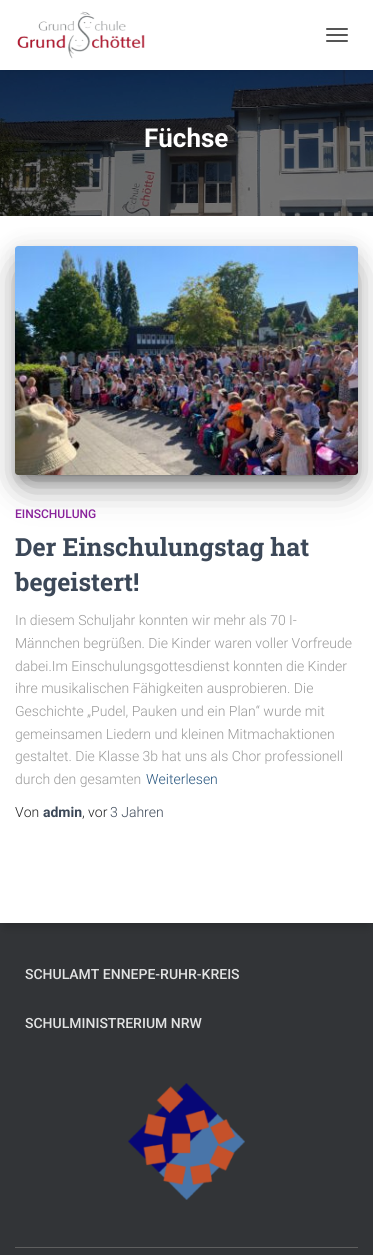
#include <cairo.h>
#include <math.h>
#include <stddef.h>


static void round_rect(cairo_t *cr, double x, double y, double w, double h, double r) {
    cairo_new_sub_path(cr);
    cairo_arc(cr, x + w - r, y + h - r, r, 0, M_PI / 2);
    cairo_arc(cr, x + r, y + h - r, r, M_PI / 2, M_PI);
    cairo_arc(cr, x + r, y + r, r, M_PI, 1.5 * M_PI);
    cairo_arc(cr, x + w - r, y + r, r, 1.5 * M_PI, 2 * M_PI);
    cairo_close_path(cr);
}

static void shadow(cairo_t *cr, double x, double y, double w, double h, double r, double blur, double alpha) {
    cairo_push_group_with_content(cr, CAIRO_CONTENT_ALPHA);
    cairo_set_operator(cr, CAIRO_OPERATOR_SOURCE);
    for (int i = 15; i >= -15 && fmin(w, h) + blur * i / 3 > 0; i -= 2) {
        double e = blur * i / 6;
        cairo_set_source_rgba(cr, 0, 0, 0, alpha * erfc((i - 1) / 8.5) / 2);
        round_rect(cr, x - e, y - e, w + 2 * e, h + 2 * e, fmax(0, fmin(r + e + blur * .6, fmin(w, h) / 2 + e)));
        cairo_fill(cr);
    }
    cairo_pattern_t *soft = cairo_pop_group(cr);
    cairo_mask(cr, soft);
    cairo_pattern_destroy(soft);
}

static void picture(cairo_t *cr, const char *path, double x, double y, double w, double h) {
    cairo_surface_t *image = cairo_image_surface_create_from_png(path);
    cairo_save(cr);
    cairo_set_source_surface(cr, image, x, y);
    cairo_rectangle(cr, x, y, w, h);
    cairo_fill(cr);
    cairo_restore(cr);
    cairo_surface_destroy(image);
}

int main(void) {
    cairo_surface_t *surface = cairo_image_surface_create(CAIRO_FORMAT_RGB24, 373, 1255);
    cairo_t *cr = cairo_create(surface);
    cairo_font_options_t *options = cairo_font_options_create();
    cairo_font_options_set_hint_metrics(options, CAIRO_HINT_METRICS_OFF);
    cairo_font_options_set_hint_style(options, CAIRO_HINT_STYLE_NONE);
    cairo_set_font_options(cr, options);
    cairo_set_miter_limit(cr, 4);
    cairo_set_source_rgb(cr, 0.196, 0.204, 0.216);
    cairo_paint(cr);
    picture(cr, "img2.png", 0, 70, 373, 146);
    cairo_set_source_rgb(cr, 0, 0, 0);
    shadow(cr, 6, 7, 361, 58, 0, 5, 0.42);
    cairo_set_source_rgb(cr, 1, 1, 1);
    cairo_rectangle(cr, 0, 0, 373, 70);
    cairo_fill(cr);
    picture(cr, "img1.png", 17, 11, 128, 48);
    cairo_set_source_rgb(cr, 0.333, 0.333, 0.333);
    round_rect(cr, 326, 28, 22, 2, 1);
    cairo_fill(cr);
    round_rect(cr, 326, 34, 22, 2, 1);
    cairo_fill(cr);
    round_rect(cr, 326, 40, 22, 2, 1);
    cairo_fill(cr);
    cairo_select_font_face(cr, "Roboto", CAIRO_FONT_SLANT_NORMAL, CAIRO_FONT_WEIGHT_BOLD);
    cairo_set_font_size(cr, 26);
    cairo_set_source_rgb(cr, 1, 1, 1);
    cairo_move_to(cr, 144, 147);
    cairo_show_text(cr, "Füchse");
    cairo_set_source_rgb(cr, 0, 0, 0);
    shadow(cr, 5, 229, 363, 697, 0, 5, 0.2);
    cairo_set_source_rgb(cr, 1, 1, 1);
    cairo_rectangle(cr, 0, 216, 373, 707);
    cairo_fill(cr);
    cairo_set_source_rgb(cr, 0, 0, 0);
    shadow(cr, 20, 259, 333, 219, 0, 5, 0.2);
    shadow(cr, 15, 250, 343, 229, 3, 12.5, 0.12);
    shadow(cr, 27, 274, 319, 205, 0, 19, 0.56);
    picture(cr, "img3.png", 15, 246, 343, 229);
    cairo_select_font_face(cr, "Roboto Medium", CAIRO_FONT_SLANT_NORMAL, CAIRO_FONT_WEIGHT_NORMAL);
    cairo_set_font_size(cr, 12);
    cairo_set_source_rgb(cr, 0.537, 0.133, 0.608);
    cairo_move_to(cr, 15, 518);
    cairo_show_text(cr, "EINSCHULUNG");
    cairo_select_font_face(cr, "Roboto Slab", CAIRO_FONT_SLANT_NORMAL, CAIRO_FONT_WEIGHT_BOLD);
    cairo_set_font_size(cr, 25);
    cairo_set_source_rgb(cr, 0.235, 0.282, 0.345);
    cairo_move_to(cr, 15, 556);
    cairo_show_text(cr, "Der Einschulungstag hat");
    cairo_move_to(cr, 15, 591);
    cairo_show_text(cr, "begeistert!");
    cairo_select_font_face(cr, "Roboto Light", CAIRO_FONT_SLANT_NORMAL, CAIRO_FONT_WEIGHT_NORMAL);
    cairo_set_font_size(cr, 14);
    cairo_set_source_rgb(cr, 0.6, 0.6, 0.6);
    cairo_move_to(cr, 15, 625);
    cairo_show_text(cr, "In diesem Schuljahr konnten wir mehr als 70 I-");
    cairo_move_to(cr, 15, 648);
    cairo_show_text(cr, "Männchen begrüßen. Die Kinder waren voller Vorfreude");
    cairo_move_to(cr, 15, 671);
    cairo_show_text(cr, "dabei.Im Einschulungsgottesdienst konnten die Kinder");
    cairo_move_to(cr, 15, 693);
    cairo_show_text(cr, "ihre musikalischen Fähigkeiten ausprobieren. Die");
    cairo_move_to(cr, 15, 716);
    cairo_show_text(cr, "Geschichte „Pudel, Pauken und ein Plan“ wurde mit");
    cairo_move_to(cr, 15, 739);
    cairo_show_text(cr, "gemeinsamen Liedern und kleinen Mitmachaktionen");
    cairo_move_to(cr, 15, 761);
    cairo_show_text(cr, "gestaltet. Die Klasse 3b hat uns als Chor professionell");
    cairo_move_to(cr, 15, 784);
    cairo_show_text(cr, "durch den gesamten");
    cairo_set_source_rgb(cr, 0.137, 0.322, 0.486);
    cairo_move_to(cr, 146, 784);
    cairo_show_text(cr, "Weiterlesen");
    cairo_set_source_rgb(cr, 0.129, 0.129, 0.129);
    cairo_move_to(cr, 15, 817);
    cairo_show_text(cr, "Von");
    cairo_select_font_face(cr, "Roboto", CAIRO_FONT_SLANT_NORMAL, CAIRO_FONT_WEIGHT_BOLD);
    cairo_set_source_rgb(cr, 0.235, 0.282, 0.345);
    cairo_move_to(cr, 43, 817);
    cairo_show_text(cr, "admin");
    cairo_select_font_face(cr, "Roboto Light", CAIRO_FONT_SLANT_NORMAL, CAIRO_FONT_WEIGHT_NORMAL);
    cairo_set_source_rgb(cr, 0.129, 0.129, 0.129);
    cairo_move_to(cr, 82, 817);
    cairo_show_text(cr, ", vor");
    cairo_set_source_rgb(cr, 0.235, 0.282, 0.345);
    cairo_move_to(cr, 110, 817);
    cairo_show_text(cr, "3 Jahren");
    cairo_select_font_face(cr, "Roboto Medium", CAIRO_FONT_SLANT_NORMAL, CAIRO_FONT_WEIGHT_NORMAL);
    cairo_set_source_rgb(cr, 0.886, 0.89, 0.89);
    cairo_move_to(cr, 25, 979);
    cairo_show_text(cr, "SCHULAMT ENNEPE-RUHR-KREIS");
    cairo_move_to(cr, 25, 1028);
    cairo_show_text(cr, "SCHULMINISTRERIUM NRW");
    picture(cr, "img4.png", 128, 1083, 117, 117);
    cairo_set_source_rgb(cr, 0.369, 0.369, 0.369);
    cairo_rectangle(cr, 15, 1247, 343, 1);
    cairo_fill(cr);
    cairo_surface_write_to_png(surface, "page.png");
    cairo_font_options_destroy(options);
    cairo_destroy(cr);
    cairo_surface_destroy(surface);
    return 0;
}
